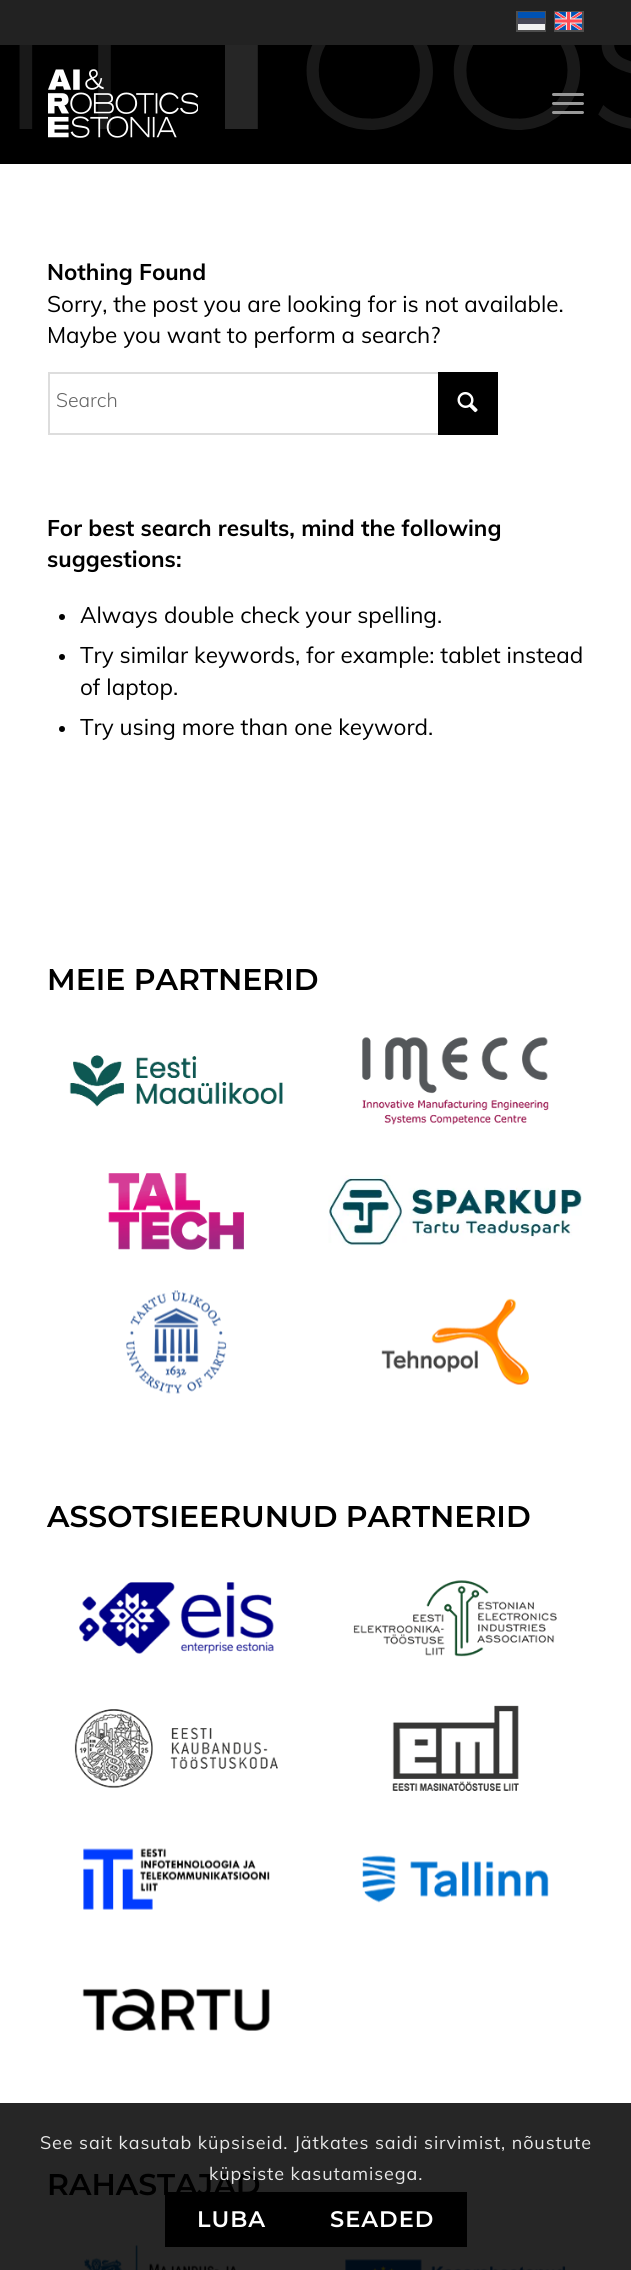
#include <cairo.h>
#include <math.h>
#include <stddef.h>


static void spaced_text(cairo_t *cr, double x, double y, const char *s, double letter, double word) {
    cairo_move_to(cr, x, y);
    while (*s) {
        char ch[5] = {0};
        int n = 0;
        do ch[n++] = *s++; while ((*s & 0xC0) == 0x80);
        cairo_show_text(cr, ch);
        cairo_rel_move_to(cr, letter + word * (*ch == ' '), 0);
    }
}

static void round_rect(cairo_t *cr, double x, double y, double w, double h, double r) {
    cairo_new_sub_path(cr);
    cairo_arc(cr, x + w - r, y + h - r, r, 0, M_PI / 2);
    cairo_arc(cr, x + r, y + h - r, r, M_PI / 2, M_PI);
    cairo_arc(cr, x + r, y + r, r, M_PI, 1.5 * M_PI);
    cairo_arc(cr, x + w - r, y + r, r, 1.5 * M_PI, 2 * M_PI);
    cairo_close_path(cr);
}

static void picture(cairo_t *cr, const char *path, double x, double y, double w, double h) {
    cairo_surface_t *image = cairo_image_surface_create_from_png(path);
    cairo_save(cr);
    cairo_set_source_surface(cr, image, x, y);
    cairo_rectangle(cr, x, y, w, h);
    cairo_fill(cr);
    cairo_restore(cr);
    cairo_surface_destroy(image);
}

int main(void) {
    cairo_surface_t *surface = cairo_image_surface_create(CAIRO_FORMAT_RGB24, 631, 2270);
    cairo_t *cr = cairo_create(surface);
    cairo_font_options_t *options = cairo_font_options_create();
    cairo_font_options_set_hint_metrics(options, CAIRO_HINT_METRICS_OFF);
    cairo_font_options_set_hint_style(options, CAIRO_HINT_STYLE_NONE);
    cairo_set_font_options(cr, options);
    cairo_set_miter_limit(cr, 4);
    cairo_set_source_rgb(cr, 1, 1, 1);
    cairo_paint(cr);
    cairo_set_source_rgb(cr, 0.149, 0.149, 0.149);
    cairo_rectangle(cr, 0, 2103, 631, 167);
    cairo_fill(cr);
    cairo_set_source_rgb(cr, 0.133, 0.133, 0.133);
    cairo_rectangle(cr, 0, 0, 631, 45);
    cairo_fill(cr);
    cairo_rectangle(cr, 517, 12, 28, 19);
    cairo_set_source_rgb(cr, 0.306, 0.306, 0.306);
    cairo_stroke(cr);
    cairo_set_source_rgb(cr, 0.275, 0.275, 0.333);
    cairo_rectangle(cr, 518, 18, 27, 6);
    cairo_fill(cr);
    cairo_set_source_rgb(cr, 0.941, 0.941, 0.941);
    cairo_rectangle(cr, 518, 24, 27, 6);
    cairo_fill(cr);
    cairo_set_source_rgb(cr, 0, 0.322, 0.706);
    cairo_rectangle(cr, 518, 12, 27, 6);
    cairo_fill(cr);
    cairo_rectangle(cr, 555, 12, 28, 19);
    cairo_set_source_rgb(cr, 0.306, 0.306, 0.306);
    cairo_stroke(cr);
    picture(cr, "img1.png", 555, 12, 27, 18);
    cairo_set_source_rgb(cr, 0, 0, 0);
    cairo_rectangle(cr, 0, 45, 631, 119);
    cairo_fill(cr);
    picture(cr, "img2.png", 19, 45, 612, 85);
    picture(cr, "img3.png", 48, 69, 150, 69);
    cairo_set_source_rgb(cr, 0.6, 0.6, 0.6);
    round_rect(cr, 552, 102, 32, 3, 1.5);
    cairo_fill(cr);
    round_rect(cr, 552, 93, 32, 3, 1.5);
    cairo_fill(cr);
    round_rect(cr, 552, 111, 32, 3, 1.5);
    cairo_fill(cr);
    cairo_select_font_face(cr, "Muli", CAIRO_FONT_SLANT_NORMAL, CAIRO_FONT_WEIGHT_BOLD);
    cairo_set_font_size(cr, 22.5);
    cairo_set_source_rgb(cr, 0, 0, 0);
    cairo_move_to(cr, 47, 280);
    cairo_show_text(cr, "Nothing Found");
    cairo_select_font_face(cr, "Muli", CAIRO_FONT_SLANT_NORMAL, CAIRO_FONT_WEIGHT_NORMAL);
    cairo_move_to(cr, 47, 312);
    cairo_show_text(cr, "Sorry, the post you are looking for is not available.");
    cairo_move_to(cr, 47, 343);
    cairo_show_text(cr, "Maybe you want to perform a search?");
    cairo_rectangle(cr, 49, 373, 448, 61);
    cairo_set_source_rgb(cr, 0.867, 0.867, 0.867);
    cairo_stroke(cr);
    cairo_select_font_face(cr, "Muli Light", CAIRO_FONT_SLANT_NORMAL, CAIRO_FONT_WEIGHT_NORMAL);
    cairo_set_font_size(cr, 19.5);
    cairo_set_source_rgb(cr, 0.4, 0.4, 0.4);
    cairo_move_to(cr, 56, 407);
    cairo_show_text(cr, "Search");
    cairo_set_source_rgb(cr, 0, 0, 0);
    cairo_rectangle(cr, 438, 372, 60, 63);
    cairo_fill(cr);
    picture(cr, "img4.png", 457, 392, 21, 21);
    cairo_select_font_face(cr, "Muli", CAIRO_FONT_SLANT_NORMAL, CAIRO_FONT_WEIGHT_BOLD);
    cairo_set_font_size(cr, 22.5);
    cairo_move_to(cr, 47, 536);
    cairo_show_text(cr, "For best search results, mind the following");
    cairo_move_to(cr, 47, 567);
    cairo_show_text(cr, "suggestions:");
    cairo_new_path(cr);
    cairo_arc(cr, 62, 617, 3, 0, 2 * M_PI);
    cairo_fill(cr);
    cairo_select_font_face(cr, "Muli", CAIRO_FONT_SLANT_NORMAL, CAIRO_FONT_WEIGHT_NORMAL);
    cairo_move_to(cr, 80, 623);
    cairo_show_text(cr, "Always double check your spelling.");
    cairo_new_path(cr);
    cairo_arc(cr, 62, 657, 3, 0, 2 * M_PI);
    cairo_fill(cr);
    cairo_move_to(cr, 80, 663);
    cairo_show_text(cr, "Try similar keywords, for example: tablet instead");
    cairo_move_to(cr, 80, 695);
    cairo_show_text(cr, "of laptop.");
    cairo_new_path(cr);
    cairo_arc(cr, 62, 729, 3, 0, 2 * M_PI);
    cairo_fill(cr);
    cairo_move_to(cr, 80, 735);
    cairo_show_text(cr, "Try using more than one keyword.");
    cairo_select_font_face(cr, "Montserrat SemiBold", CAIRO_FONT_SLANT_NORMAL, CAIRO_FONT_WEIGHT_NORMAL);
    cairo_set_font_size(cr, 30);
    cairo_move_to(cr, 47, 990);
    cairo_show_text(cr, "MEIE PARTNERID");
    picture(cr, "img5.png", 69, 1055, 214, 52);
    picture(cr, "img6.png", 362, 1037, 187, 88);
    picture(cr, "img7.png", 108, 1173, 136, 77);
    picture(cr, "img8.png", 328, 1175, 254, 71);
    picture(cr, "img9.png", 126, 1290, 101, 104);
    picture(cr, "img10.png", 381, 1298, 148, 87);
    cairo_move_to(cr, 47, 1527);
    cairo_show_text(cr, "ASSOTSIEERUNUD PARTNERID");
    picture(cr, "img11.png", 79, 1582, 195, 72);
    picture(cr, "img12.png", 353, 1580, 204, 77);
    picture(cr, "img13.png", 74, 1709, 204, 79);
    picture(cr, "img14.png", 392, 1705, 127, 86);
    picture(cr, "img15.png", 83, 1848, 187, 62);
    picture(cr, "img16.png", 362, 1855, 187, 48);
    picture(cr, "img17.png", 82, 1988, 188, 43);
    cairo_move_to(cr, 47, 2195);
    cairo_show_text(cr, "RAHASTAJAD");
    picture(cr, "img18.png", 84, 2245, 152, 25);
    picture(cr, "img19.png", 345, 2259, 221, 11);
    cairo_select_font_face(cr, "Muli", CAIRO_FONT_SLANT_NORMAL, CAIRO_FONT_WEIGHT_NORMAL);
    cairo_set_font_size(cr, 18);
    cairo_set_source_rgb(cr, 0.914, 0.914, 0.914);
    spaced_text(cr, 40, 2149, "See sait kasutab küpsiseid. Jätkates saidi sirvimist, nõustute", 0.9, 0);
    spaced_text(cr, 209, 2180, "küpsiste kasutamisega.", 0.9, 0);
    cairo_set_source_rgb(cr, 0, 0, 0);
    cairo_rectangle(cr, 165, 2192, 302, 55);
    cairo_fill(cr);
    cairo_select_font_face(cr, "Montserrat SemiBold", CAIRO_FONT_SLANT_NORMAL, CAIRO_FONT_WEIGHT_NORMAL);
    cairo_set_font_size(cr, 22.5);
    cairo_set_source_rgb(cr, 1, 1, 1);
    spaced_text(cr, 197, 2227, "LUBA", 1, 0);
    spaced_text(cr, 330, 2227, "SEADED", 1, 0);
    cairo_surface_write_to_png(surface, "page.png");
    cairo_font_options_destroy(options);
    cairo_destroy(cr);
    cairo_surface_destroy(surface);
    return 0;
}
